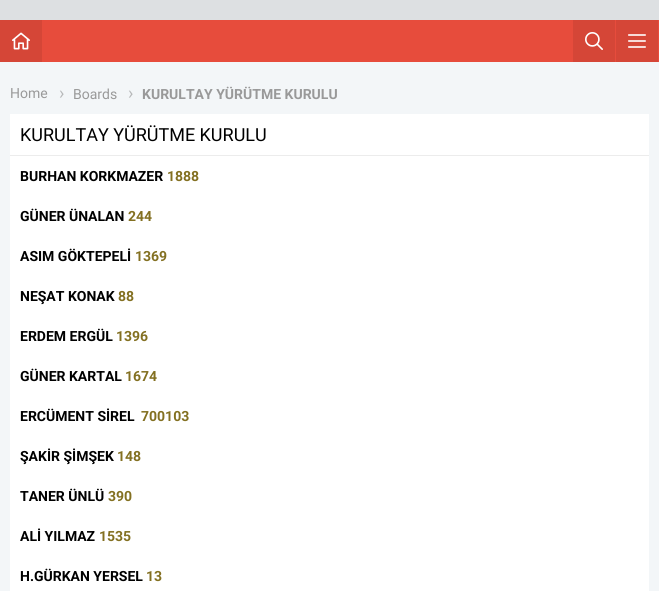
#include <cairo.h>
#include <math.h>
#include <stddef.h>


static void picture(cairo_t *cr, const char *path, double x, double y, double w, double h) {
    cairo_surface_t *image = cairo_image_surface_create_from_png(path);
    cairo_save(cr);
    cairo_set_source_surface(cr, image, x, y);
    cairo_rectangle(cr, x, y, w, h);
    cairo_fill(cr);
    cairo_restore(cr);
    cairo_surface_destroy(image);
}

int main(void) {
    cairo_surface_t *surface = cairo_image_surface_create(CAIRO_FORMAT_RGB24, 659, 591);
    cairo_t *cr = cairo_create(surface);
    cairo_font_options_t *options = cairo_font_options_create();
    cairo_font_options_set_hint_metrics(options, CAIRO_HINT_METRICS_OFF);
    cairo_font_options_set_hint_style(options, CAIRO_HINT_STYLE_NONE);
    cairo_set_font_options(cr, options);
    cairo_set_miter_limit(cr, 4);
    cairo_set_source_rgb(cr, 0.867, 0.878, 0.886);
    cairo_paint(cr);
    cairo_set_source_rgb(cr, 0.906, 0.298, 0.235);
    cairo_rectangle(cr, 42, 20, 617, 42);
    cairo_fill(cr);
    cairo_set_source_rgb(cr, 0.835, 0.275, 0.216);
    cairo_rectangle(cr, 0, 20, 42, 42);
    cairo_fill(cr);
    picture(cr, "img1.png", 12, 32, 18, 18);
    cairo_rectangle(cr, 573, 20, 42, 42);
    cairo_fill(cr);
    picture(cr, "img2.png", 585, 32, 18, 18);
    cairo_rectangle(cr, 616, 20, 42, 42);
    cairo_fill(cr);
    picture(cr, "img3.png", 628, 34, 18, 14);
    cairo_set_source_rgb(cr, 0.953, 0.961, 0.969);
    cairo_rectangle(cr, 0, 62, 659, 529);
    cairo_fill(cr);
    cairo_select_font_face(cr, "Roboto", CAIRO_FONT_SLANT_NORMAL, CAIRO_FONT_WEIGHT_NORMAL);
    cairo_set_font_size(cr, 14);
    cairo_set_source_rgb(cr, 0.6, 0.6, 0.6);
    cairo_move_to(cr, 10, 98);
    cairo_show_text(cr, "Home");
    cairo_set_font_size(cr, 18);
    cairo_set_source_rgb(cr, 0.714, 0.722, 0.725);
    cairo_move_to(cr, 59, 99);
    cairo_show_text(cr, "›");
    cairo_set_font_size(cr, 14);
    cairo_set_source_rgb(cr, 0.6, 0.6, 0.6);
    cairo_move_to(cr, 73, 99);
    cairo_show_text(cr, "Boards");
    cairo_set_font_size(cr, 18);
    cairo_set_source_rgb(cr, 0.714, 0.722, 0.725);
    cairo_move_to(cr, 128, 99);
    cairo_show_text(cr, "›");
    cairo_select_font_face(cr, "Roboto", CAIRO_FONT_SLANT_NORMAL, CAIRO_FONT_WEIGHT_BOLD);
    cairo_set_font_size(cr, 14);
    cairo_set_source_rgb(cr, 0.6, 0.6, 0.6);
    cairo_move_to(cr, 142, 99);
    cairo_show_text(cr, "KURULTAY YÜRÜTME KURULU");
    cairo_set_source_rgb(cr, 1, 1, 1);
    cairo_rectangle(cr, 10, 114, 639, 477);
    cairo_fill(cr);
    cairo_set_source_rgb(cr, 0.925, 0.925, 0.925);
    cairo_rectangle(cr, 10, 155, 639, 1);
    cairo_fill(cr);
    cairo_select_font_face(cr, "Roboto", CAIRO_FONT_SLANT_NORMAL, CAIRO_FONT_WEIGHT_NORMAL);
    cairo_set_font_size(cr, 18);
    cairo_set_source_rgb(cr, 0, 0, 0);
    cairo_move_to(cr, 20, 141);
    cairo_show_text(cr, "KURULTAY YÜRÜTME KURULU");
    cairo_select_font_face(cr, "Roboto", CAIRO_FONT_SLANT_NORMAL, CAIRO_FONT_WEIGHT_BOLD);
    cairo_set_font_size(cr, 14);
    cairo_move_to(cr, 20, 181);
    cairo_show_text(cr, "BURHAN KORKMAZER");
    cairo_set_source_rgb(cr, 0.514, 0.439, 0.129);
    cairo_move_to(cr, 167, 181);
    cairo_show_text(cr, "1888");
    cairo_set_source_rgb(cr, 0, 0, 0);
    cairo_move_to(cr, 20, 221);
    cairo_show_text(cr, "GÜNER ÜNALAN");
    cairo_set_source_rgb(cr, 0.514, 0.439, 0.129);
    cairo_move_to(cr, 128, 221);
    cairo_show_text(cr, "244");
    cairo_set_source_rgb(cr, 0, 0, 0);
    cairo_move_to(cr, 20, 261);
    cairo_show_text(cr, "ASIM GÖKTEPELİ");
    cairo_set_source_rgb(cr, 0.514, 0.439, 0.129);
    cairo_move_to(cr, 135, 261);
    cairo_show_text(cr, "1369");
    cairo_set_source_rgb(cr, 0, 0, 0);
    cairo_move_to(cr, 20, 301);
    cairo_show_text(cr, "NEŞAT KONAK");
    cairo_set_source_rgb(cr, 0.514, 0.439, 0.129);
    cairo_move_to(cr, 118, 301);
    cairo_show_text(cr, "88");
    cairo_set_source_rgb(cr, 0, 0, 0);
    cairo_move_to(cr, 20, 341);
    cairo_show_text(cr, "ERDEM ERGÜL");
    cairo_set_source_rgb(cr, 0.514, 0.439, 0.129);
    cairo_move_to(cr, 116, 341);
    cairo_show_text(cr, "1396");
    cairo_set_source_rgb(cr, 0, 0, 0);
    cairo_move_to(cr, 20, 381);
    cairo_show_text(cr, "GÜNER KARTAL");
    cairo_set_source_rgb(cr, 0.514, 0.439, 0.129);
    cairo_move_to(cr, 125, 381);
    cairo_show_text(cr, "1674");
    cairo_set_source_rgb(cr, 0, 0, 0);
    cairo_move_to(cr, 20, 421);
    cairo_show_text(cr, "ERCÜMENT SİREL");
    cairo_set_source_rgb(cr, 0.514, 0.439, 0.129);
    cairo_move_to(cr, 141, 421);
    cairo_show_text(cr, "700103");
    cairo_set_source_rgb(cr, 0, 0, 0);
    cairo_move_to(cr, 20, 461);
    cairo_show_text(cr, "ŞAKİR ŞİMŞEK");
    cairo_set_source_rgb(cr, 0.514, 0.439, 0.129);
    cairo_move_to(cr, 117, 461);
    cairo_show_text(cr, "148");
    cairo_set_source_rgb(cr, 0, 0, 0);
    cairo_move_to(cr, 20, 501);
    cairo_show_text(cr, "TANER ÜNLÜ");
    cairo_set_source_rgb(cr, 0.514, 0.439, 0.129);
    cairo_move_to(cr, 108, 501);
    cairo_show_text(cr, "390");
    cairo_set_source_rgb(cr, 0, 0, 0);
    cairo_move_to(cr, 20, 541);
    cairo_show_text(cr, "ALİ YILMAZ");
    cairo_set_source_rgb(cr, 0.514, 0.439, 0.129);
    cairo_move_to(cr, 99, 541);
    cairo_show_text(cr, "1535");
    cairo_set_source_rgb(cr, 0, 0, 0);
    cairo_move_to(cr, 20, 581);
    cairo_show_text(cr, "H.GÜRKAN YERSEL");
    cairo_set_source_rgb(cr, 0.514, 0.439, 0.129);
    cairo_move_to(cr, 146, 581);
    cairo_show_text(cr, "13");
    cairo_surface_write_to_png(surface, "page.png");
    cairo_font_options_destroy(options);
    cairo_destroy(cr);
    cairo_surface_destroy(surface);
    return 0;
}
